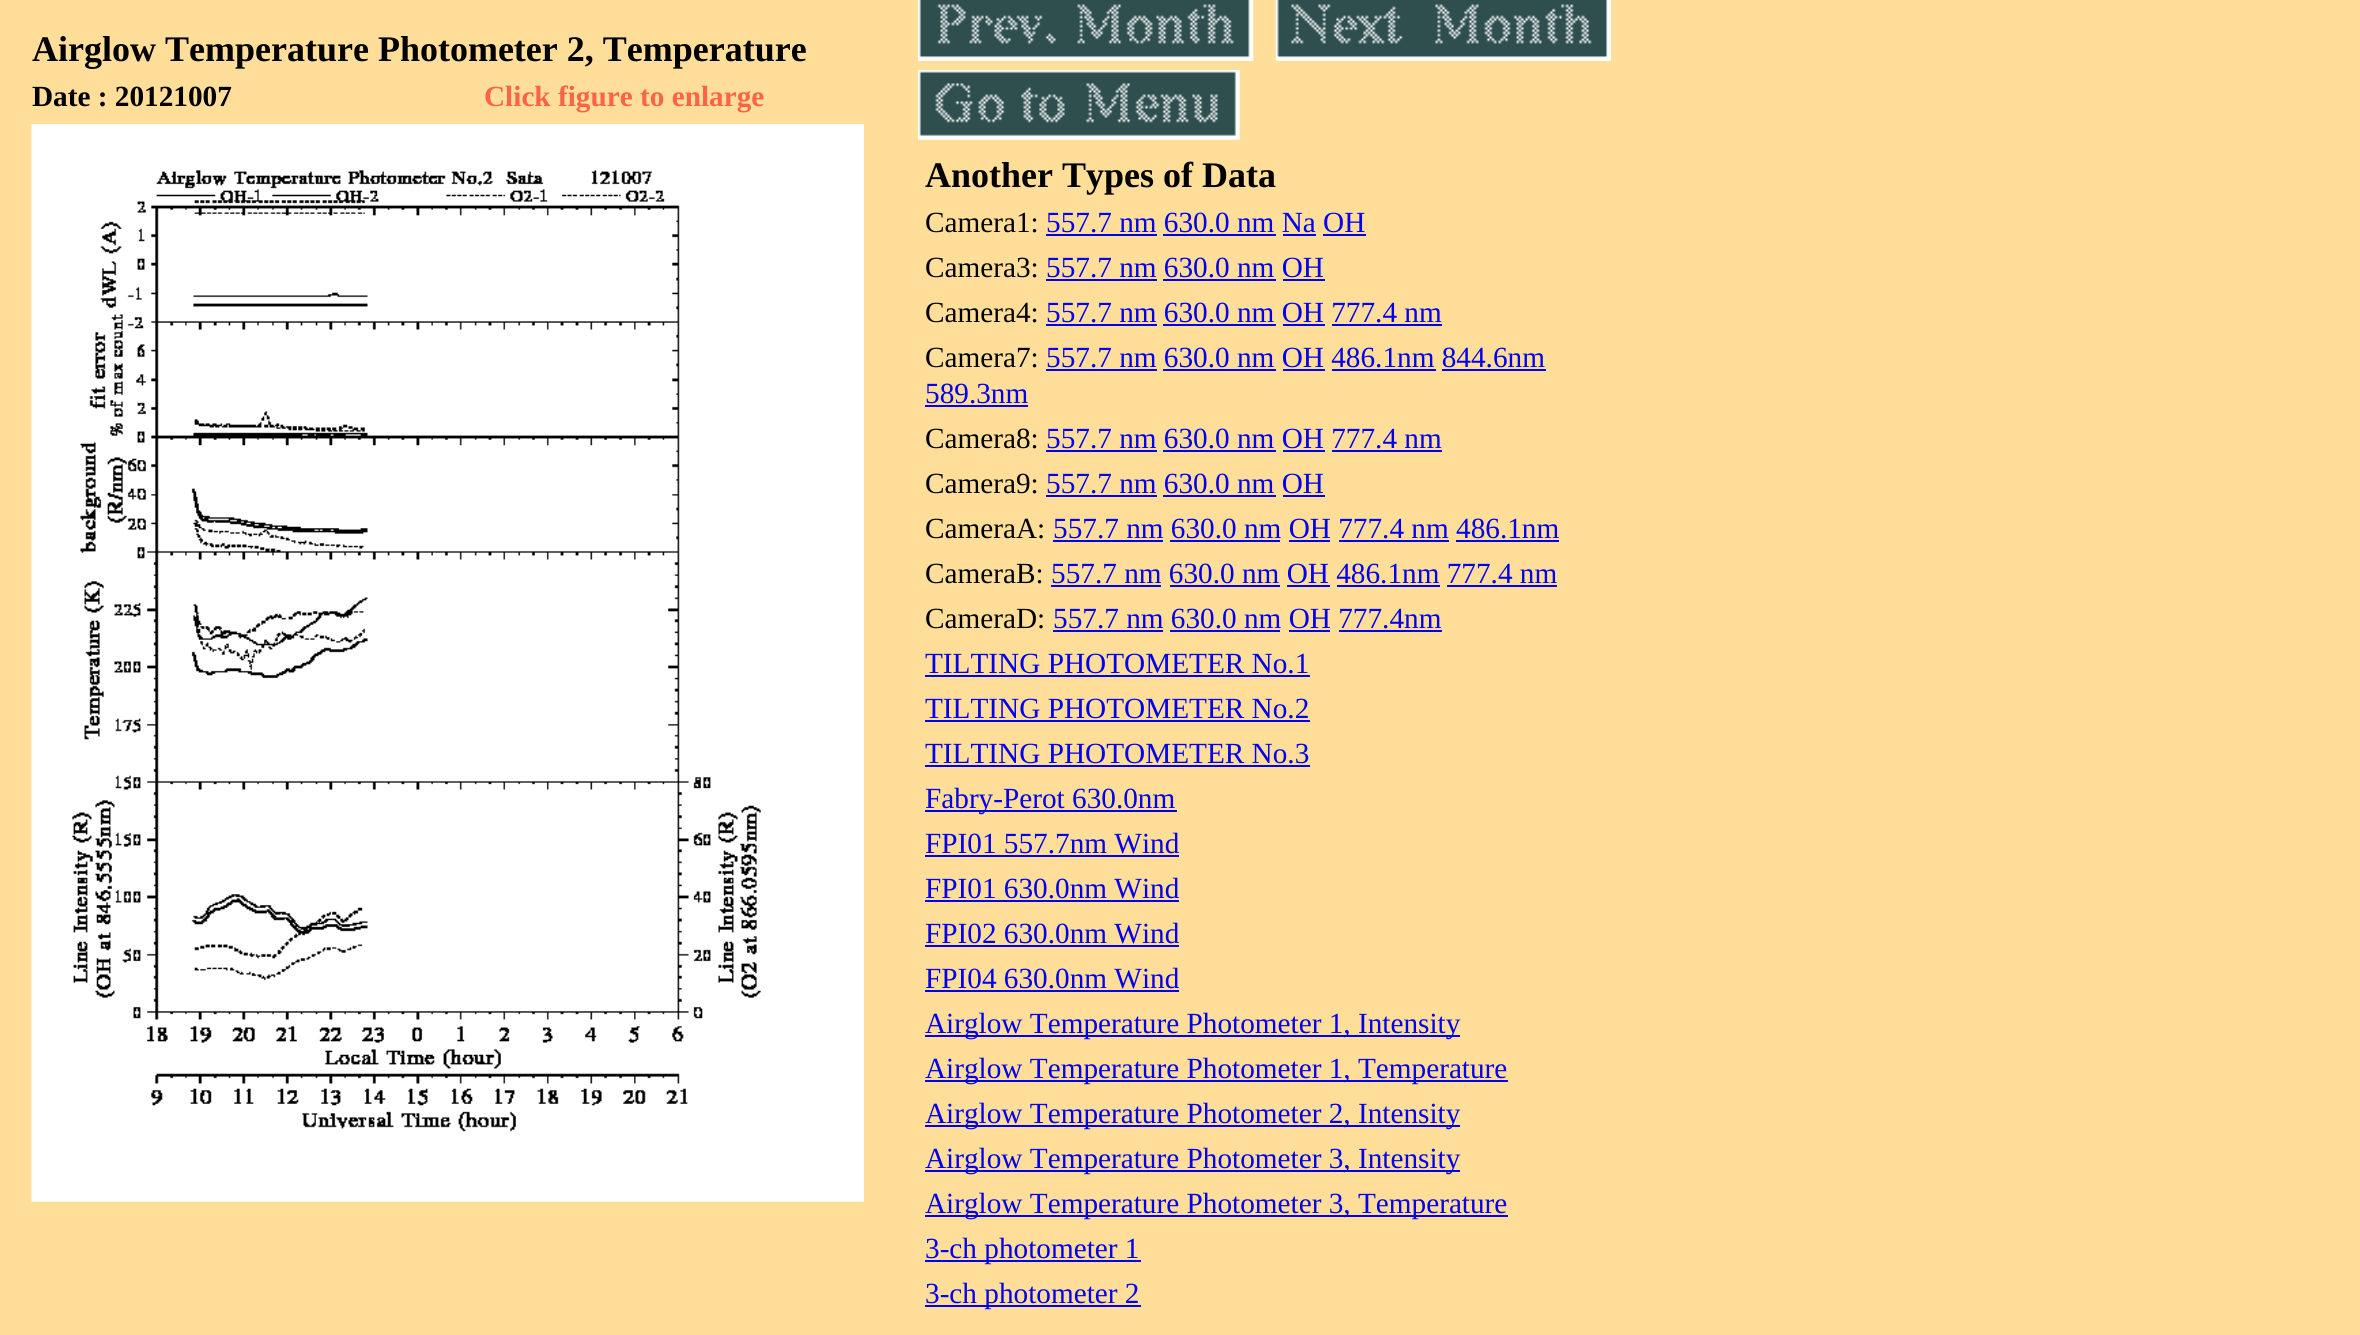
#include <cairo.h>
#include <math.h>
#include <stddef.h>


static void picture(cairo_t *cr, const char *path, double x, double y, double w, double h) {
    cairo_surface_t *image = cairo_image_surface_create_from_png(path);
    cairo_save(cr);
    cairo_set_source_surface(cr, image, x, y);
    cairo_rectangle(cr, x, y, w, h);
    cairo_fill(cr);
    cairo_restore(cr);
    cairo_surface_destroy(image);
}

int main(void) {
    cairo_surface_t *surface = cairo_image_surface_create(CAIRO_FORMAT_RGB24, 2360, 1335);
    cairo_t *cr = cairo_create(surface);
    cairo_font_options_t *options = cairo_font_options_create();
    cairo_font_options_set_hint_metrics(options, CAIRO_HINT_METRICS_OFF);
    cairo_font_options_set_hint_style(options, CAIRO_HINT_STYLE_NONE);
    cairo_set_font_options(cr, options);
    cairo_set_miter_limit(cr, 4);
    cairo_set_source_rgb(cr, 1, 0.871, 0.6);
    cairo_paint(cr);
    cairo_select_font_face(cr, "Liberation Serif", CAIRO_FONT_SLANT_NORMAL, CAIRO_FONT_WEIGHT_BOLD);
    cairo_set_font_size(cr, 36);
    cairo_set_source_rgb(cr, 0, 0, 0);
    cairo_move_to(cr, 32, 61);
    cairo_show_text(cr, "Airglow Temperature Photometer 2, Temperature");
    cairo_set_font_size(cr, 29.25);
    cairo_move_to(cr, 32, 106);
    cairo_show_text(cr, "Date : 20121007");
    cairo_set_source_rgb(cr, 1, 0.388, 0.278);
    cairo_move_to(cr, 484, 106);
    cairo_show_text(cr, "Click figure to enlarge");
    picture(cr, "img1.png", 31, 124, 833, 1078);
    picture(cr, "img2.png", 918, 0, 336, 61);
    picture(cr, "img3.png", 1275, 0, 336, 61);
    picture(cr, "img4.png", 918, 70, 322, 70);
    cairo_set_font_size(cr, 36);
    cairo_set_source_rgb(cr, 0, 0, 0);
    cairo_move_to(cr, 925, 187);
    cairo_show_text(cr, "Another Types of Data");
    cairo_select_font_face(cr, "Liberation Serif", CAIRO_FONT_SLANT_NORMAL, CAIRO_FONT_WEIGHT_NORMAL);
    cairo_set_font_size(cr, 29.25);
    cairo_move_to(cr, 925, 232);
    cairo_show_text(cr, "Camera1:");
    cairo_set_source_rgb(cr, 0, 0, 0.933);
    cairo_move_to(cr, 1046, 232);
    cairo_show_text(cr, "557.7 nm 630.0 nm Na OH");
    cairo_rectangle(cr, 1046, 234, 111, 2);
    cairo_fill(cr);
    cairo_rectangle(cr, 1163, 234, 113, 2);
    cairo_fill(cr);
    cairo_rectangle(cr, 1283, 234, 33, 2);
    cairo_fill(cr);
    cairo_rectangle(cr, 1323, 234, 43, 2);
    cairo_fill(cr);
    cairo_set_source_rgb(cr, 0, 0, 0);
    cairo_move_to(cr, 925, 277);
    cairo_show_text(cr, "Camera3:");
    cairo_set_source_rgb(cr, 0, 0, 0.933);
    cairo_move_to(cr, 1046, 277);
    cairo_show_text(cr, "557.7 nm 630.0 nm OH");
    cairo_rectangle(cr, 1046, 279, 111, 2);
    cairo_fill(cr);
    cairo_rectangle(cr, 1163, 279, 113, 2);
    cairo_fill(cr);
    cairo_rectangle(cr, 1283, 279, 42, 2);
    cairo_fill(cr);
    cairo_set_source_rgb(cr, 0, 0, 0);
    cairo_move_to(cr, 925, 322);
    cairo_show_text(cr, "Camera4:");
    cairo_set_source_rgb(cr, 0, 0, 0.933);
    cairo_move_to(cr, 1046, 322);
    cairo_show_text(cr, "557.7 nm 630.0 nm OH 777.4 nm");
    cairo_rectangle(cr, 1046, 324, 111, 2);
    cairo_fill(cr);
    cairo_rectangle(cr, 1163, 324, 113, 2);
    cairo_fill(cr);
    cairo_rectangle(cr, 1283, 324, 42, 2);
    cairo_fill(cr);
    cairo_rectangle(cr, 1332, 324, 110, 2);
    cairo_fill(cr);
    cairo_set_source_rgb(cr, 0, 0, 0);
    cairo_move_to(cr, 925, 367);
    cairo_show_text(cr, "Camera7:");
    cairo_set_source_rgb(cr, 0, 0, 0.933);
    cairo_move_to(cr, 1046, 367);
    cairo_show_text(cr, "557.7 nm 630.0 nm OH 486.1nm 844.6nm");
    cairo_rectangle(cr, 1046, 369, 111, 2);
    cairo_fill(cr);
    cairo_rectangle(cr, 1163, 369, 113, 2);
    cairo_fill(cr);
    cairo_rectangle(cr, 1283, 369, 42, 2);
    cairo_fill(cr);
    cairo_rectangle(cr, 1332, 369, 104, 2);
    cairo_fill(cr);
    cairo_rectangle(cr, 1442, 369, 104, 2);
    cairo_fill(cr);
    cairo_move_to(cr, 925, 403);
    cairo_show_text(cr, "589.3nm");
    cairo_rectangle(cr, 925, 405, 103, 2);
    cairo_fill(cr);
    cairo_set_source_rgb(cr, 0, 0, 0);
    cairo_move_to(cr, 925, 448);
    cairo_show_text(cr, "Camera8:");
    cairo_set_source_rgb(cr, 0, 0, 0.933);
    cairo_move_to(cr, 1046, 448);
    cairo_show_text(cr, "557.7 nm 630.0 nm OH 777.4 nm");
    cairo_rectangle(cr, 1046, 450, 111, 2);
    cairo_fill(cr);
    cairo_rectangle(cr, 1163, 450, 113, 2);
    cairo_fill(cr);
    cairo_rectangle(cr, 1283, 450, 42, 2);
    cairo_fill(cr);
    cairo_rectangle(cr, 1332, 450, 110, 2);
    cairo_fill(cr);
    cairo_set_source_rgb(cr, 0, 0, 0);
    cairo_move_to(cr, 925, 493);
    cairo_show_text(cr, "Camera9:");
    cairo_set_source_rgb(cr, 0, 0, 0.933);
    cairo_move_to(cr, 1046, 493);
    cairo_show_text(cr, "557.7 nm 630.0 nm OH");
    cairo_rectangle(cr, 1046, 495, 111, 2);
    cairo_fill(cr);
    cairo_rectangle(cr, 1163, 495, 113, 2);
    cairo_fill(cr);
    cairo_rectangle(cr, 1283, 495, 42, 2);
    cairo_fill(cr);
    cairo_set_source_rgb(cr, 0, 0, 0);
    cairo_move_to(cr, 925, 538);
    cairo_show_text(cr, "CameraA:");
    cairo_set_source_rgb(cr, 0, 0, 0.933);
    cairo_move_to(cr, 1053, 538);
    cairo_show_text(cr, "557.7 nm 630.0 nm OH 777.4 nm 486.1nm");
    cairo_rectangle(cr, 1053, 540, 110, 2);
    cairo_fill(cr);
    cairo_rectangle(cr, 1170, 540, 110, 2);
    cairo_fill(cr);
    cairo_rectangle(cr, 1289, 540, 41, 2);
    cairo_fill(cr);
    cairo_rectangle(cr, 1339, 540, 110, 2);
    cairo_fill(cr);
    cairo_rectangle(cr, 1456, 540, 103, 2);
    cairo_fill(cr);
    cairo_set_source_rgb(cr, 0, 0, 0);
    cairo_move_to(cr, 925, 583);
    cairo_show_text(cr, "CameraB:");
    cairo_set_source_rgb(cr, 0, 0, 0.933);
    cairo_move_to(cr, 1051, 583);
    cairo_show_text(cr, "557.7 nm 630.0 nm OH 486.1nm 777.4 nm");
    cairo_rectangle(cr, 1051, 585, 110, 2);
    cairo_fill(cr);
    cairo_rectangle(cr, 1170, 585, 110, 2);
    cairo_fill(cr);
    cairo_rectangle(cr, 1287, 585, 43, 2);
    cairo_fill(cr);
    cairo_rectangle(cr, 1337, 585, 103, 2);
    cairo_fill(cr);
    cairo_rectangle(cr, 1447, 585, 110, 2);
    cairo_fill(cr);
    cairo_set_source_rgb(cr, 0, 0, 0);
    cairo_move_to(cr, 925, 628);
    cairo_show_text(cr, "CameraD:");
    cairo_set_source_rgb(cr, 0, 0, 0.933);
    cairo_move_to(cr, 1053, 628);
    cairo_show_text(cr, "557.7 nm 630.0 nm OH 777.4nm");
    cairo_rectangle(cr, 1053, 630, 110, 2);
    cairo_fill(cr);
    cairo_rectangle(cr, 1170, 630, 110, 2);
    cairo_fill(cr);
    cairo_rectangle(cr, 1289, 630, 41, 2);
    cairo_fill(cr);
    cairo_rectangle(cr, 1339, 630, 103, 2);
    cairo_fill(cr);
    cairo_move_to(cr, 925, 673);
    cairo_show_text(cr, "TILTING PHOTOMETER No.1");
    cairo_rectangle(cr, 925, 675, 385, 2);
    cairo_fill(cr);
    cairo_move_to(cr, 925, 718);
    cairo_show_text(cr, "TILTING PHOTOMETER No.2");
    cairo_rectangle(cr, 925, 720, 385, 2);
    cairo_fill(cr);
    cairo_move_to(cr, 925, 763);
    cairo_show_text(cr, "TILTING PHOTOMETER No.3");
    cairo_rectangle(cr, 925, 765, 385, 2);
    cairo_fill(cr);
    cairo_rectangle(cr, 925, 810, 252, 2);
    cairo_fill(cr);
    cairo_move_to(cr, 925, 808);
    cairo_show_text(cr, "Fabry-Perot 630.0nm");
    cairo_move_to(cr, 925, 853);
    cairo_show_text(cr, "FPI01 557.7nm Wind");
    cairo_rectangle(cr, 925, 855, 254, 2);
    cairo_fill(cr);
    cairo_move_to(cr, 925, 898);
    cairo_show_text(cr, "FPI01 630.0nm Wind");
    cairo_rectangle(cr, 925, 900, 254, 2);
    cairo_fill(cr);
    cairo_move_to(cr, 925, 943);
    cairo_show_text(cr, "FPI02 630.0nm Wind");
    cairo_rectangle(cr, 925, 945, 254, 2);
    cairo_fill(cr);
    cairo_move_to(cr, 925, 988);
    cairo_show_text(cr, "FPI04 630.0nm Wind");
    cairo_rectangle(cr, 925, 990, 254, 2);
    cairo_fill(cr);
    cairo_rectangle(cr, 925, 1035, 535, 2);
    cairo_fill(cr);
    cairo_move_to(cr, 925, 1033);
    cairo_show_text(cr, "Airglow Temperature Photometer 1, Intensity");
    cairo_rectangle(cr, 925, 1080, 583, 2);
    cairo_fill(cr);
    cairo_move_to(cr, 925, 1078);
    cairo_show_text(cr, "Airglow Temperature Photometer 1, Temperature");
    cairo_rectangle(cr, 925, 1125, 535, 2);
    cairo_fill(cr);
    cairo_move_to(cr, 925, 1123);
    cairo_show_text(cr, "Airglow Temperature Photometer 2, Intensity");
    cairo_rectangle(cr, 925, 1170, 535, 2);
    cairo_fill(cr);
    cairo_move_to(cr, 925, 1168);
    cairo_show_text(cr, "Airglow Temperature Photometer 3, Intensity");
    cairo_rectangle(cr, 925, 1215, 583, 2);
    cairo_fill(cr);
    cairo_move_to(cr, 925, 1213);
    cairo_show_text(cr, "Airglow Temperature Photometer 3, Temperature");
    cairo_rectangle(cr, 925, 1260, 216, 2);
    cairo_fill(cr);
    cairo_move_to(cr, 925, 1258);
    cairo_show_text(cr, "3-ch photometer 1");
    cairo_rectangle(cr, 925, 1305, 216, 2);
    cairo_fill(cr);
    cairo_move_to(cr, 925, 1303);
    cairo_show_text(cr, "3-ch photometer 2");
    cairo_surface_write_to_png(surface, "page.png");
    cairo_font_options_destroy(options);
    cairo_destroy(cr);
    cairo_surface_destroy(surface);
    return 0;
}
